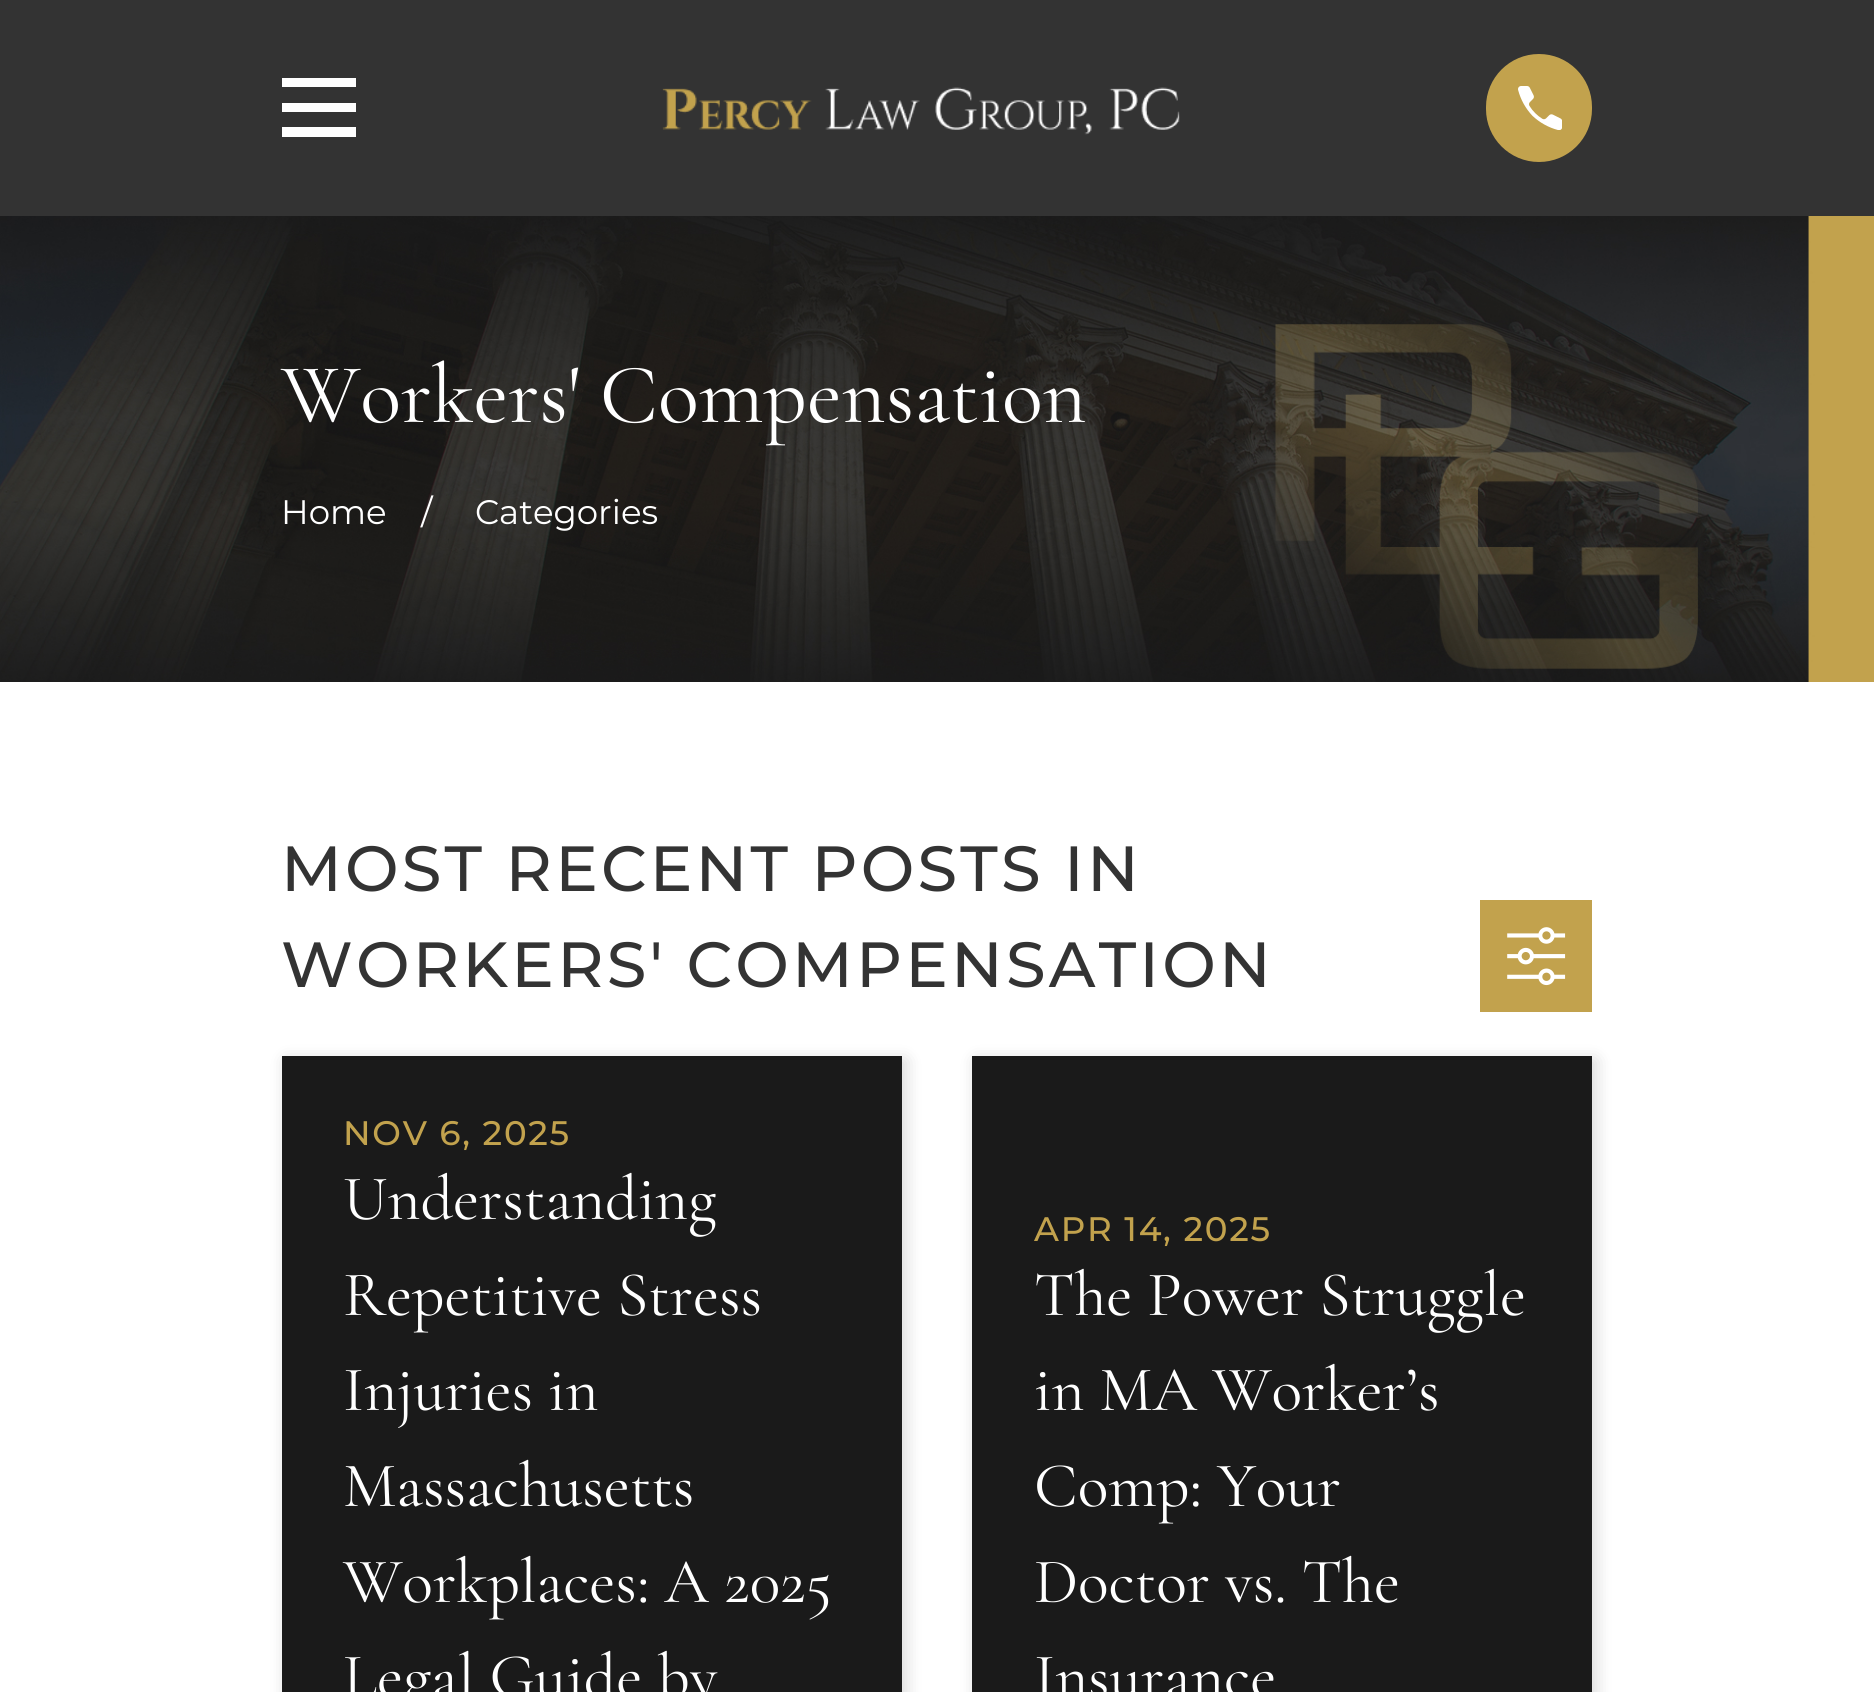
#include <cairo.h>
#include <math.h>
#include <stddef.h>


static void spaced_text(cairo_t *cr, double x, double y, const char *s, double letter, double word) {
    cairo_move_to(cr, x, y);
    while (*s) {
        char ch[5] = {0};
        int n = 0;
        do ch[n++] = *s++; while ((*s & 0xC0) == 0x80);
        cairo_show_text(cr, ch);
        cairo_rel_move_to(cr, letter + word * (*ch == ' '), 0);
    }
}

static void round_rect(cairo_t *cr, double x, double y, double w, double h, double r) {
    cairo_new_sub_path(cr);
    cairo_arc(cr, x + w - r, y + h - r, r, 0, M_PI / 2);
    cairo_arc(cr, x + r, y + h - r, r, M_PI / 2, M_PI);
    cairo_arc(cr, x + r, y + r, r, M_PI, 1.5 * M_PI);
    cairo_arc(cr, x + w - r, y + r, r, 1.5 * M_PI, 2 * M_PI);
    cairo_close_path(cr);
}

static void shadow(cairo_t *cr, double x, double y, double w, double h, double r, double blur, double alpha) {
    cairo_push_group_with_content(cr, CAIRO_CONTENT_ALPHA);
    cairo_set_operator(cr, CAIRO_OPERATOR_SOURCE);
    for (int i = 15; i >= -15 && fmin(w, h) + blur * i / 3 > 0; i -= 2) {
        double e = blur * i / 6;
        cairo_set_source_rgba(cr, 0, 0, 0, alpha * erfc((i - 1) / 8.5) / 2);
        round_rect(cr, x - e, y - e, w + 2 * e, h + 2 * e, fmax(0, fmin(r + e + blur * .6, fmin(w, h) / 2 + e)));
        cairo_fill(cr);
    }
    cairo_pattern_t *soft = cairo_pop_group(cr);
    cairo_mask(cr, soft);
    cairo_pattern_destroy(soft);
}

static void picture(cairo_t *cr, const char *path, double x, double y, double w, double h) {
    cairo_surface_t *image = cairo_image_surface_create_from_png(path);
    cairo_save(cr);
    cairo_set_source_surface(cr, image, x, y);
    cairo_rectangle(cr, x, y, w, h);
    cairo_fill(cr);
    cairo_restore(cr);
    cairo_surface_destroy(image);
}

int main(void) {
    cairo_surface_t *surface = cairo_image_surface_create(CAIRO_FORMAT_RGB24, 1874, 1692);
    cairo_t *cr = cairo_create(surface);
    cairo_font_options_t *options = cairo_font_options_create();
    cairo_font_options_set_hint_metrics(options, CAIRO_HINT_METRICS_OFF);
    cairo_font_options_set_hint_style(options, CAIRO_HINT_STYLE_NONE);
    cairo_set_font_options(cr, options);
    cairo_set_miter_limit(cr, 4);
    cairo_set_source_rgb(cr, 1, 1, 1);
    cairo_paint(cr);
    cairo_set_source_rgb(cr, 0.2, 0.2, 0.2);
    cairo_rectangle(cr, 0, 0, 1874, 216);
    cairo_fill(cr);
    cairo_save(cr);
    cairo_rectangle(cr, 282, 70, 74, 76);
    cairo_clip(cr);
    cairo_set_source_rgb(cr, 1, 1, 1);
    cairo_new_path(cr);
    cairo_move_to(cr, 282, 78);
    cairo_line_to(cr, 282, 87);
    cairo_line_to(cr, 357, 87);
    cairo_line_to(cr, 357, 78);
    cairo_close_path(cr);
    cairo_move_to(cr, 282, 103);
    cairo_line_to(cr, 282, 112);
    cairo_line_to(cr, 357, 112);
    cairo_line_to(cr, 357, 103);
    cairo_close_path(cr);
    cairo_move_to(cr, 282, 127);
    cairo_line_to(cr, 282, 137);
    cairo_line_to(cr, 357, 137);
    cairo_line_to(cr, 357, 127);
    cairo_close_path(cr);
    cairo_fill(cr);
    cairo_restore(cr);
    picture(cr, "img1.png", 662, 87, 518, 48);
    cairo_set_source_rgb(cr, 0.761, 0.635, 0.302);
    round_rect(cr, 1486, 54, 106, 108, 53);
    cairo_fill(cr);
    picture(cr, "img2.png", 1518, 86, 44, 44);
    picture(cr, "img3.png", 0, 216, 1874, 466);
    cairo_select_font_face(cr, "Cormorant Garamond", CAIRO_FONT_SLANT_NORMAL, CAIRO_FONT_WEIGHT_NORMAL);
    cairo_set_font_size(cr, 85);
    cairo_set_source_rgb(cr, 1, 1, 1);
    cairo_move_to(cr, 281, 422);
    cairo_show_text(cr, "Workers' Compensation");
    cairo_select_font_face(cr, "Montserrat", CAIRO_FONT_SLANT_NORMAL, CAIRO_FONT_WEIGHT_NORMAL);
    cairo_set_font_size(cr, 34);
    cairo_move_to(cr, 281, 524);
    cairo_show_text(cr, "Home");
    cairo_move_to(cr, 421, 524);
    cairo_show_text(cr, "/");
    cairo_move_to(cr, 475, 524);
    cairo_show_text(cr, "Categories");
    cairo_select_font_face(cr, "Montserrat Medium", CAIRO_FONT_SLANT_NORMAL, CAIRO_FONT_WEIGHT_NORMAL);
    cairo_set_font_size(cr, 63.75);
    cairo_set_source_rgb(cr, 0.2, 0.2, 0.2);
    spaced_text(cr, 281, 891, "MOST RECENT POSTS", 3.2, 0);
    spaced_text(cr, 1064, 891, "IN", 3.2, 0);
    spaced_text(cr, 281, 987, "WORKERS' COMPENSATION", 3.2, 0);
    cairo_set_source_rgb(cr, 0.761, 0.635, 0.302);
    cairo_rectangle(cr, 1480, 900, 112, 112);
    cairo_fill(cr);
    picture(cr, "img4.png", 1507, 927, 59, 59);
    cairo_set_source_rgb(cr, 0, 0, 0);
    shadow(cr, 286, 1060, 620, 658, 0, 8.5, 0.16);
    cairo_set_source_rgb(cr, 0.102, 0.102, 0.102);
    cairo_rectangle(cr, 282, 1056, 620, 636);
    cairo_fill(cr);
    cairo_set_font_size(cr, 34);
    cairo_set_source_rgb(cr, 0.761, 0.635, 0.302);
    spaced_text(cr, 343, 1145, "NOV 6, 2025", 1.75, 0);
    cairo_select_font_face(cr, "Cormorant Garamond", CAIRO_FONT_SLANT_NORMAL, CAIRO_FONT_WEIGHT_NORMAL);
    cairo_set_font_size(cr, 63.75);
    cairo_set_source_rgb(cr, 1, 1, 1);
    cairo_move_to(cr, 343, 1219);
    cairo_show_text(cr, "Understanding");
    cairo_move_to(cr, 343, 1315);
    cairo_show_text(cr, "Repetitive Stress");
    cairo_move_to(cr, 343, 1410);
    cairo_show_text(cr, "Injuries in");
    cairo_move_to(cr, 343, 1506);
    cairo_show_text(cr, "Massachusetts");
    cairo_move_to(cr, 343, 1602);
    cairo_show_text(cr, "Workplaces: A 2025");
    cairo_move_to(cr, 343, 1697);
    cairo_show_text(cr, "Legal Guide by");
    cairo_set_source_rgb(cr, 0, 0, 0);
    shadow(cr, 976, 1060, 620, 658, 0, 8.5, 0.16);
    cairo_set_source_rgb(cr, 0.102, 0.102, 0.102);
    cairo_rectangle(cr, 972, 1056, 620, 636);
    cairo_fill(cr);
    cairo_select_font_face(cr, "Montserrat Medium", CAIRO_FONT_SLANT_NORMAL, CAIRO_FONT_WEIGHT_NORMAL);
    cairo_set_font_size(cr, 34);
    cairo_set_source_rgb(cr, 0.761, 0.635, 0.302);
    spaced_text(cr, 1034, 1241, "APR 14, 2025", 1.75, 0);
    cairo_select_font_face(cr, "Cormorant Garamond", CAIRO_FONT_SLANT_NORMAL, CAIRO_FONT_WEIGHT_NORMAL);
    cairo_set_font_size(cr, 63.75);
    cairo_set_source_rgb(cr, 1, 1, 1);
    cairo_move_to(cr, 1034, 1315);
    cairo_show_text(cr, "The Power Struggle");
    cairo_move_to(cr, 1034, 1410);
    cairo_show_text(cr, "in MA Worker’s");
    cairo_move_to(cr, 1034, 1506);
    cairo_show_text(cr, "Comp: Your");
    cairo_move_to(cr, 1034, 1602);
    cairo_show_text(cr, "Doctor vs. The");
    cairo_move_to(cr, 1034, 1697);
    cairo_show_text(cr, "Insurance");
    cairo_surface_write_to_png(surface, "page.png");
    cairo_font_options_destroy(options);
    cairo_destroy(cr);
    cairo_surface_destroy(surface);
    return 0;
}
